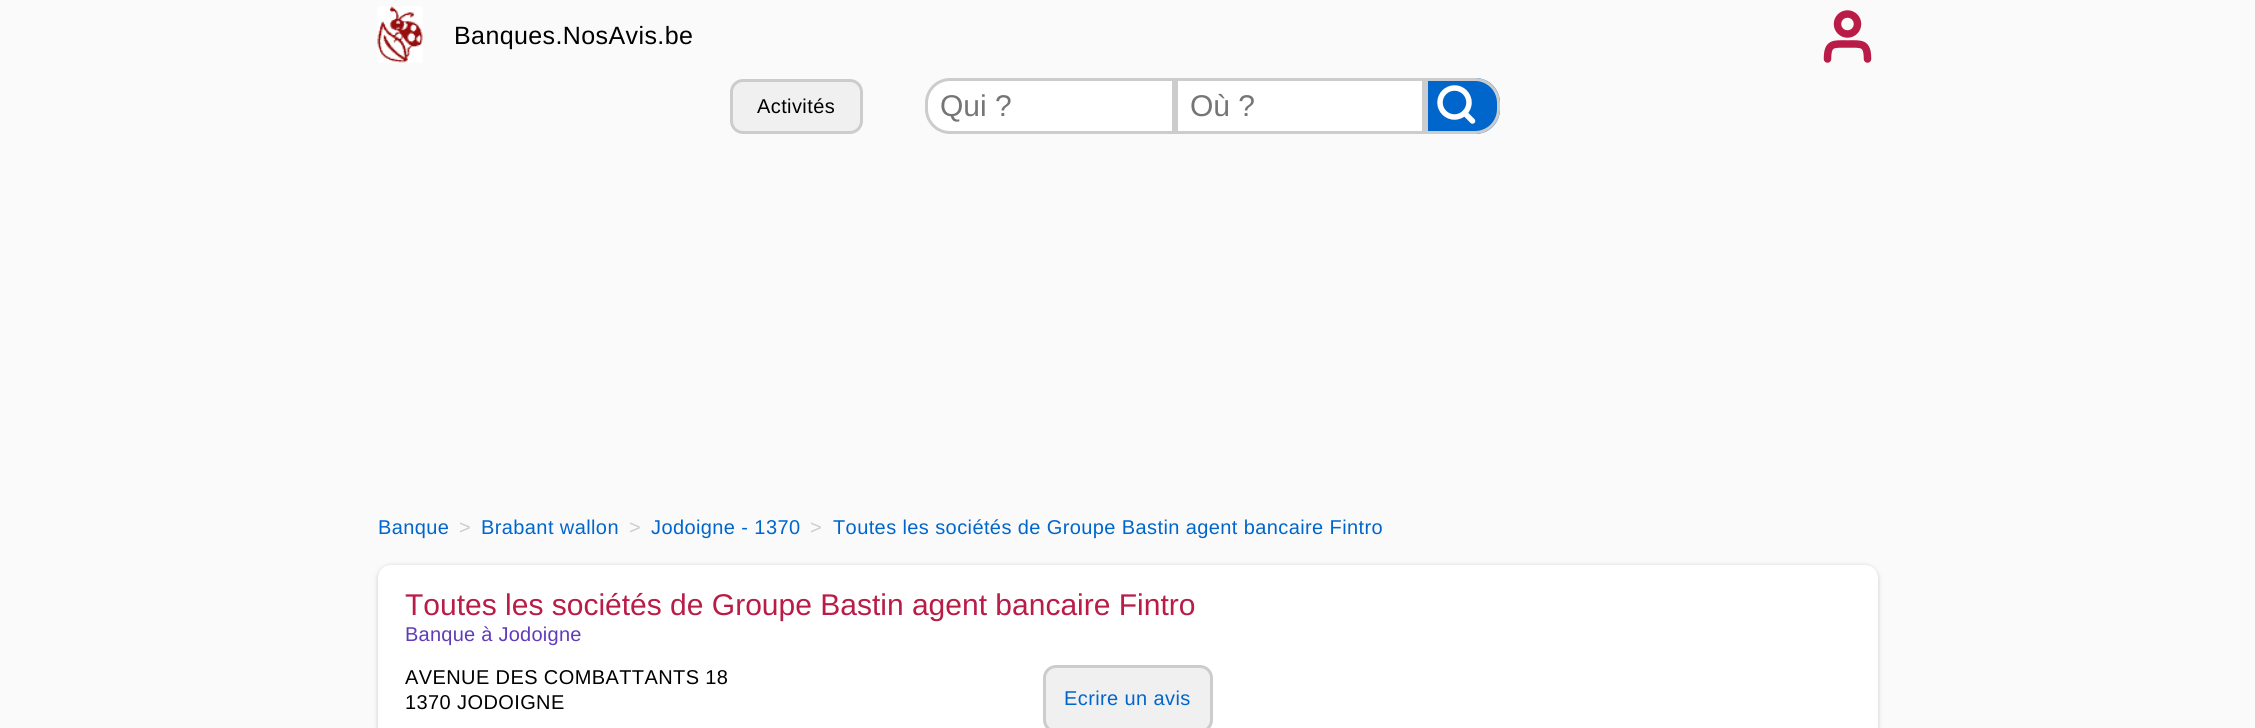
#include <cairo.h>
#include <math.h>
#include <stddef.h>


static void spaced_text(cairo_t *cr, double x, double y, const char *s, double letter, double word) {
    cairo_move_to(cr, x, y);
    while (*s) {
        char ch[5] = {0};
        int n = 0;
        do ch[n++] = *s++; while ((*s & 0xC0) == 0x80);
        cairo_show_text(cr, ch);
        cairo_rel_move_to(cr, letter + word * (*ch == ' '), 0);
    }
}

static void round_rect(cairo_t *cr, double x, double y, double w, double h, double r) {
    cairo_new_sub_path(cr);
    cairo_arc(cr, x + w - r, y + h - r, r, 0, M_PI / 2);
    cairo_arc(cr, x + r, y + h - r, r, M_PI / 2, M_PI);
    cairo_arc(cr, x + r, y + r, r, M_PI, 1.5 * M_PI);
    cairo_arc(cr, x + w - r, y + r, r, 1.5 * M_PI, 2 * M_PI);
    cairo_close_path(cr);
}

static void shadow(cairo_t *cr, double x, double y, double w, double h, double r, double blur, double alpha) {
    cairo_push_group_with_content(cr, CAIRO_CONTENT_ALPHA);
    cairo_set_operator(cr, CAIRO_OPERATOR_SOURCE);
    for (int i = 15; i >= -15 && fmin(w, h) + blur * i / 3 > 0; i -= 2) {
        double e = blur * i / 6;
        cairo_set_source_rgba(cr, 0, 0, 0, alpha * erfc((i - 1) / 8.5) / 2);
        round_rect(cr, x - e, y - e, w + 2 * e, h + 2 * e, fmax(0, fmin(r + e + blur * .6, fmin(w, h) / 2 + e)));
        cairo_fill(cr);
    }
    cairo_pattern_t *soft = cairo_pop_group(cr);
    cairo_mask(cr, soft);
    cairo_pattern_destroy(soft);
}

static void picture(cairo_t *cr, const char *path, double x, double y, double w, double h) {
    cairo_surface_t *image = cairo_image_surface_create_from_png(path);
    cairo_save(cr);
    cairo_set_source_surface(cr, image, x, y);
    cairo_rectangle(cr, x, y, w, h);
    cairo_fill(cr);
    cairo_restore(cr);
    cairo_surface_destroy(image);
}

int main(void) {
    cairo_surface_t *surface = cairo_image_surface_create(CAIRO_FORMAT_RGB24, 2255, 728);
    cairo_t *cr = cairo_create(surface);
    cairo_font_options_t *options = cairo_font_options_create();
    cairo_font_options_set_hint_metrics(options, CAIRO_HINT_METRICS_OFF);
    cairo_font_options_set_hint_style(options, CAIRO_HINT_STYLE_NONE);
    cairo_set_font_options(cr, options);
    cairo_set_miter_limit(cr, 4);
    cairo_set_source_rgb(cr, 0.98, 0.98, 0.98);
    cairo_paint(cr);
    picture(cr, "img1.png", 377, 6, 46, 57);
    cairo_select_font_face(cr, "Liberation Sans", CAIRO_FONT_SLANT_NORMAL, CAIRO_FONT_WEIGHT_NORMAL);
    cairo_set_font_size(cr, 25);
    cairo_set_source_rgb(cr, 0, 0, 0);
    spaced_text(cr, 454, 44, "Banques.NosAvis.be", 0.4, 0);
    cairo_new_path(cr);
    cairo_move_to(cr, 1867.5, 59);
    cairo_curve_to(cr, 1867.5, 42.5, 1861.5, 44, 1847.5, 44);
    cairo_curve_to(cr, 1833.5, 44, 1827.5, 42.5, 1827.5, 59);
    cairo_set_source_rgb(cr, 0.725, 0.114, 0.278);
    cairo_set_line_width(cr, 7.5);
    cairo_set_line_cap(cr, CAIRO_LINE_CAP_ROUND);
    cairo_set_line_join(cr, CAIRO_LINE_JOIN_ROUND);
    cairo_stroke(cr);
    cairo_arc(cr, 1847.5, 24, 10, 0, 2 * M_PI);
    cairo_set_line_cap(cr, CAIRO_LINE_CAP_BUTT);
    cairo_set_line_join(cr, CAIRO_LINE_JOIN_MITER);
    cairo_stroke(cr);
    cairo_set_source_rgb(cr, 0.941, 0.941, 0.941);
    round_rect(cr, 731.5, 80.5, 130, 52, 11.5);
    cairo_fill_preserve(cr);
    cairo_set_source_rgb(cr, 0.8, 0.8, 0.8);
    cairo_set_line_width(cr, 3);
    cairo_stroke(cr);
    cairo_set_font_size(cr, 20);
    cairo_set_source_rgb(cr, 0, 0, 0);
    spaced_text(cr, 757, 113, "Activités", 0.4, 0);
    cairo_set_source_rgb(cr, 1, 1, 1);
    cairo_new_path(cr);
    cairo_move_to(cr, 950, 79.5);
    cairo_line_to(cr, 1173.5, 79.5);
    cairo_line_to(cr, 1173.5, 132.5);
    cairo_line_to(cr, 950, 132.5);
    cairo_curve_to(cr, 937, 132.5, 926.5, 122, 926.5, 109);
    cairo_line_to(cr, 926.5, 103);
    cairo_curve_to(cr, 926.5, 90, 937, 79.5, 950, 79.5);
    cairo_close_path(cr);
    cairo_fill_preserve(cr);
    cairo_set_source_rgb(cr, 0.8, 0.8, 0.8);
    cairo_stroke(cr);
    cairo_set_font_size(cr, 30);
    cairo_set_source_rgb(cr, 0.459, 0.459, 0.459);
    cairo_move_to(cr, 940, 116);
    cairo_show_text(cr, "Qui ?");
    cairo_set_source_rgb(cr, 1, 1, 1);
    cairo_rectangle(cr, 1176.5, 79.5, 247, 53);
    cairo_fill_preserve(cr);
    cairo_set_source_rgb(cr, 0.8, 0.8, 0.8);
    cairo_stroke(cr);
    cairo_set_source_rgb(cr, 0.459, 0.459, 0.459);
    cairo_move_to(cr, 1190, 116);
    cairo_show_text(cr, "Où ?");
    cairo_set_source_rgb(cr, 0, 0.4, 0.8);
    cairo_new_path(cr);
    cairo_move_to(cr, 1425, 78);
    cairo_line_to(cr, 1475, 78);
    cairo_curve_to(cr, 1489, 78, 1500, 89, 1500, 103);
    cairo_line_to(cr, 1500, 109);
    cairo_curve_to(cr, 1500, 123, 1489, 134, 1475, 134);
    cairo_line_to(cr, 1425, 134);
    cairo_close_path(cr);
    cairo_fill(cr);
    cairo_arc(cr, 1454.5, 102.5, 14.5, 0, 2 * M_PI);
    cairo_set_source_rgb(cr, 1, 1, 1);
    cairo_set_line_width(cr, 5.5);
    cairo_stroke(cr);
    cairo_new_path(cr);
    cairo_move_to(cr, 1472.5, 121);
    cairo_line_to(cr, 1464.5, 113);
    cairo_set_line_cap(cr, CAIRO_LINE_CAP_ROUND);
    cairo_set_line_join(cr, CAIRO_LINE_JOIN_ROUND);
    cairo_stroke(cr);
    cairo_new_path(cr);
    cairo_move_to(cr, 1426.5, 79.5);
    cairo_line_to(cr, 1475, 79.5);
    cairo_curve_to(cr, 1488, 79.5, 1498.5, 90, 1498.5, 103);
    cairo_line_to(cr, 1498.5, 109);
    cairo_curve_to(cr, 1498.5, 122, 1488, 132.5, 1475, 132.5);
    cairo_line_to(cr, 1426.5, 132.5);
    cairo_close_path(cr);
    cairo_set_source_rgb(cr, 0.8, 0.8, 0.8);
    cairo_set_line_width(cr, 3);
    cairo_set_line_cap(cr, CAIRO_LINE_CAP_BUTT);
    cairo_set_line_join(cr, CAIRO_LINE_JOIN_MITER);
    cairo_stroke(cr);
    cairo_set_font_size(cr, 20);
    cairo_set_source_rgb(cr, 0, 0.4, 0.8);
    spaced_text(cr, 378, 534, "Banque", 0.4, 0);
    cairo_set_source_rgb(cr, 0.8, 0.8, 0.8);
    spaced_text(cr, 459, 534, ">", 0.4, 0);
    cairo_set_source_rgb(cr, 0, 0.4, 0.8);
    spaced_text(cr, 481, 534, "Brabant wallon", 0.4, 0);
    cairo_set_source_rgb(cr, 0.8, 0.8, 0.8);
    spaced_text(cr, 629, 534, ">", 0.4, 0);
    cairo_set_source_rgb(cr, 0, 0.4, 0.8);
    spaced_text(cr, 651, 534, "Jodoigne - 1370", 0.4, 0);
    cairo_set_source_rgb(cr, 0.8, 0.8, 0.8);
    spaced_text(cr, 810, 534, ">", 0.4, 0);
    cairo_set_source_rgb(cr, 0, 0.4, 0.8);
    spaced_text(cr, 833, 534, "Toutes les sociétés de Groupe Bastin agent bancaire Fintro", 0.4, 0);
    cairo_set_source_rgb(cr, 0, 0, 0);
    shadow(cr, 378, 566, 1500, 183, 13, 2.5, 0.2);
    cairo_set_source_rgb(cr, 1, 1, 1);
    round_rect(cr, 379.5, 566.5, 1497, 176, 11.5);
    cairo_fill_preserve(cr);
    cairo_stroke(cr);
    cairo_set_font_size(cr, 30);
    cairo_set_source_rgb(cr, 0.725, 0.114, 0.278);
    cairo_move_to(cr, 405, 615);
    cairo_show_text(cr, "Toutes les sociétés de Groupe Bastin agent bancaire Fintro");
    cairo_set_font_size(cr, 20);
    cairo_set_source_rgb(cr, 0.376, 0.235, 0.729);
    spaced_text(cr, 405, 641, "Banque à Jodoigne", 0.25, 0);
    cairo_set_source_rgb(cr, 0, 0, 0);
    spaced_text(cr, 405, 684, "AVENUE DES COMBATTANTS 18", 0.4, 0);
    spaced_text(cr, 405, 709, "1370 JODOIGNE", 0.4, 0);
    cairo_set_source_rgb(cr, 0.941, 0.941, 0.941);
    round_rect(cr, 1044.5, 666.5, 167, 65, 11.5);
    cairo_fill_preserve(cr);
    cairo_set_source_rgb(cr, 0.8, 0.8, 0.8);
    cairo_stroke(cr);
    cairo_set_source_rgb(cr, 0, 0.4, 0.8);
    spaced_text(cr, 1064, 705, "Ecrire un avis", 0.4, 0);
    cairo_surface_write_to_png(surface, "page.png");
    cairo_font_options_destroy(options);
    cairo_destroy(cr);
    cairo_surface_destroy(surface);
    return 0;
}
